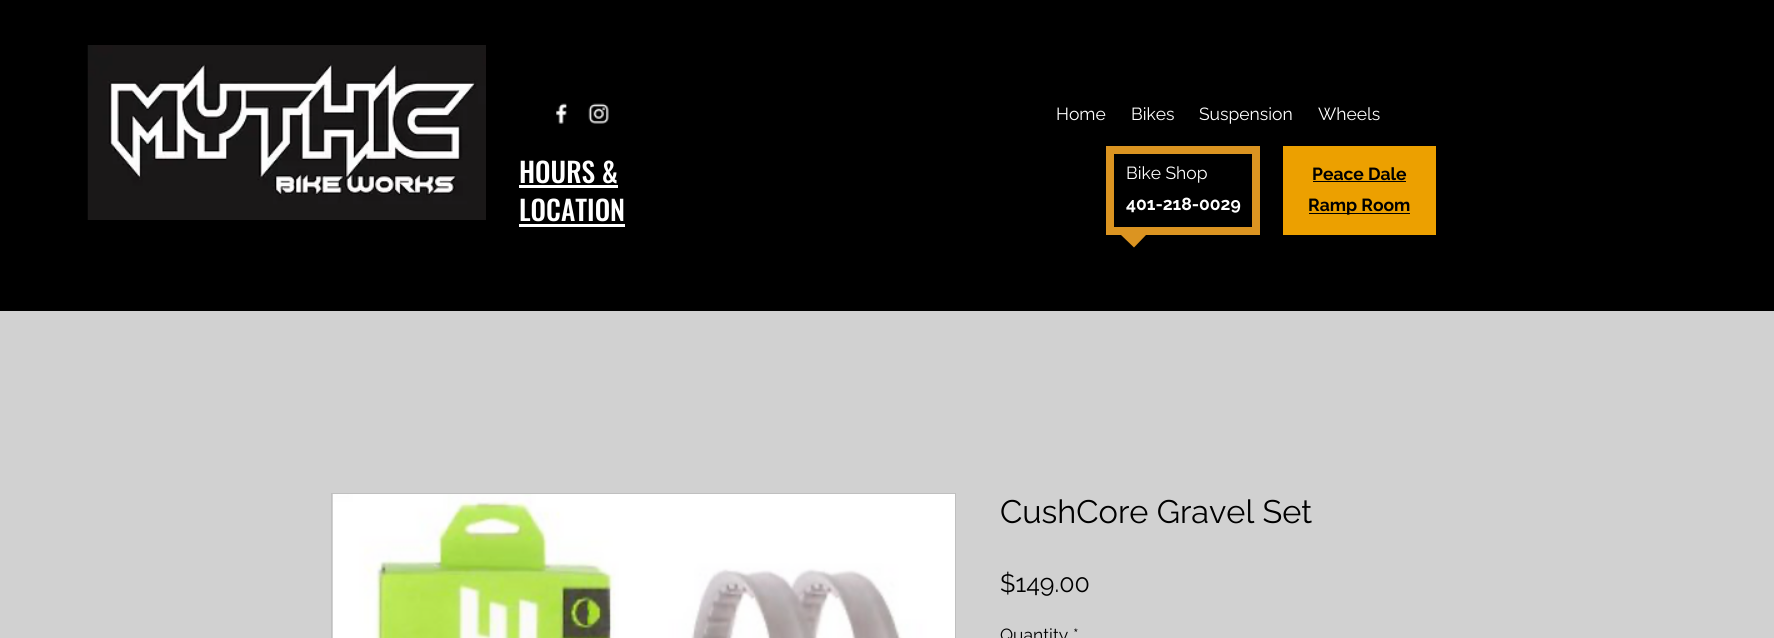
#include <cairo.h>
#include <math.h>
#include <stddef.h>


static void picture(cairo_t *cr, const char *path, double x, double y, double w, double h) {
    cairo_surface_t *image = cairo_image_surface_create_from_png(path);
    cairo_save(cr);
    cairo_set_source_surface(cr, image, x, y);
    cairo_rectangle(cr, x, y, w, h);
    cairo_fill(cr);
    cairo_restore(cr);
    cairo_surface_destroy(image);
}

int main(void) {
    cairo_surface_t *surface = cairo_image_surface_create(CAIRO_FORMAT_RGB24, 1774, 638);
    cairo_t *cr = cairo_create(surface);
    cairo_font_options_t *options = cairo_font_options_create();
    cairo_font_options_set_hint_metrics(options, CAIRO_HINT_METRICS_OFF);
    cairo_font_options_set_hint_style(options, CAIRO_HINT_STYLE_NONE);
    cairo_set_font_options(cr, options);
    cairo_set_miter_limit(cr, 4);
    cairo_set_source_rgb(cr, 0, 0, 0);
    cairo_paint(cr);
    picture(cr, "img1.png", 87, 45, 399, 175);
    picture(cr, "img2.png", 556, 103, 11, 21);
    picture(cr, "img3.png", 588, 103, 21, 21);
    cairo_select_font_face(cr, "Oswald Medium", CAIRO_FONT_SLANT_NORMAL, CAIRO_FONT_WEIGHT_NORMAL);
    cairo_set_font_size(cr, 27.5);
    cairo_set_source_rgb(cr, 1, 1, 1);
    cairo_move_to(cr, 519, 183);
    cairo_show_text(cr, "HOURS &");
    cairo_rectangle(cr, 519, 185, 99, 3);
    cairo_fill(cr);
    cairo_move_to(cr, 519, 221);
    cairo_show_text(cr, "LOCATION");
    cairo_rectangle(cr, 519, 224, 106, 3);
    cairo_fill(cr);
    cairo_select_font_face(cr, "Raleway", CAIRO_FONT_SLANT_NORMAL, CAIRO_FONT_WEIGHT_NORMAL);
    cairo_set_font_size(cr, 17.5);
    cairo_move_to(cr, 1056, 120);
    cairo_show_text(cr, "Home");
    cairo_move_to(cr, 1131, 120);
    cairo_show_text(cr, "Bikes");
    cairo_move_to(cr, 1199, 120);
    cairo_show_text(cr, "Suspension");
    cairo_move_to(cr, 1318, 120);
    cairo_show_text(cr, "Wheels");
    cairo_rectangle(cr, 1110, 150, 146, 81);
    cairo_set_source_rgb(cr, 0.859, 0.58, 0.129);
    cairo_set_line_width(cr, 8);
    cairo_stroke(cr);
    cairo_new_path(cr);
    cairo_move_to(cr, 1121, 235);
    cairo_line_to(cr, 1146, 235);
    cairo_line_to(cr, 1134, 247.5);
    cairo_close_path(cr);
    cairo_fill(cr);
    cairo_set_source_rgb(cr, 1, 1, 1);
    cairo_move_to(cr, 1126, 179);
    cairo_show_text(cr, "Bike Shop");
    cairo_set_source_rgb(cr, 0.922, 0.627, 0);
    cairo_rectangle(cr, 1283, 146, 153, 89);
    cairo_fill(cr);
    cairo_select_font_face(cr, "Raleway", CAIRO_FONT_SLANT_NORMAL, CAIRO_FONT_WEIGHT_BOLD);
    cairo_set_source_rgb(cr, 0, 0, 0);
    cairo_move_to(cr, 1312, 180);
    cairo_show_text(cr, "Peace Dale");
    cairo_rectangle(cr, 1313, 181, 93, 1);
    cairo_fill(cr);
    cairo_rectangle(cr, 1309, 213, 101, 1);
    cairo_fill(cr);
    cairo_move_to(cr, 1308, 211);
    cairo_show_text(cr, "Ramp Room");
    cairo_set_source_rgb(cr, 1, 1, 1);
    cairo_move_to(cr, 1126, 210);
    cairo_show_text(cr, "401-218-0029");
    cairo_set_source_rgb(cr, 0.82, 0.82, 0.82);
    cairo_rectangle(cr, 0, 311, 1774, 327);
    cairo_fill(cr);
    cairo_rectangle(cr, 331.5, 493.5, 624, 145);
    cairo_set_source_rgb(cr, 0.749, 0.749, 0.749);
    cairo_set_line_width(cr, 1);
    cairo_stroke(cr);
    picture(cr, "img4.png", 333, 494, 622, 144);
    cairo_select_font_face(cr, "Raleway", CAIRO_FONT_SLANT_NORMAL, CAIRO_FONT_WEIGHT_NORMAL);
    cairo_set_font_size(cr, 32.5);
    cairo_set_source_rgb(cr, 0, 0, 0);
    cairo_move_to(cr, 1000, 523);
    cairo_show_text(cr, "CushCore Gravel Set");
    cairo_set_font_size(cr, 25);
    cairo_move_to(cr, 1000, 592);
    cairo_show_text(cr, "$149.00");
    cairo_set_font_size(cr, 17.5);
    cairo_move_to(cr, 1000, 641);
    cairo_show_text(cr, "Quantity");
    cairo_move_to(cr, 1073, 641);
    cairo_show_text(cr, "*");
    cairo_surface_write_to_png(surface, "page.png");
    cairo_font_options_destroy(options);
    cairo_destroy(cr);
    cairo_surface_destroy(surface);
    return 0;
}
